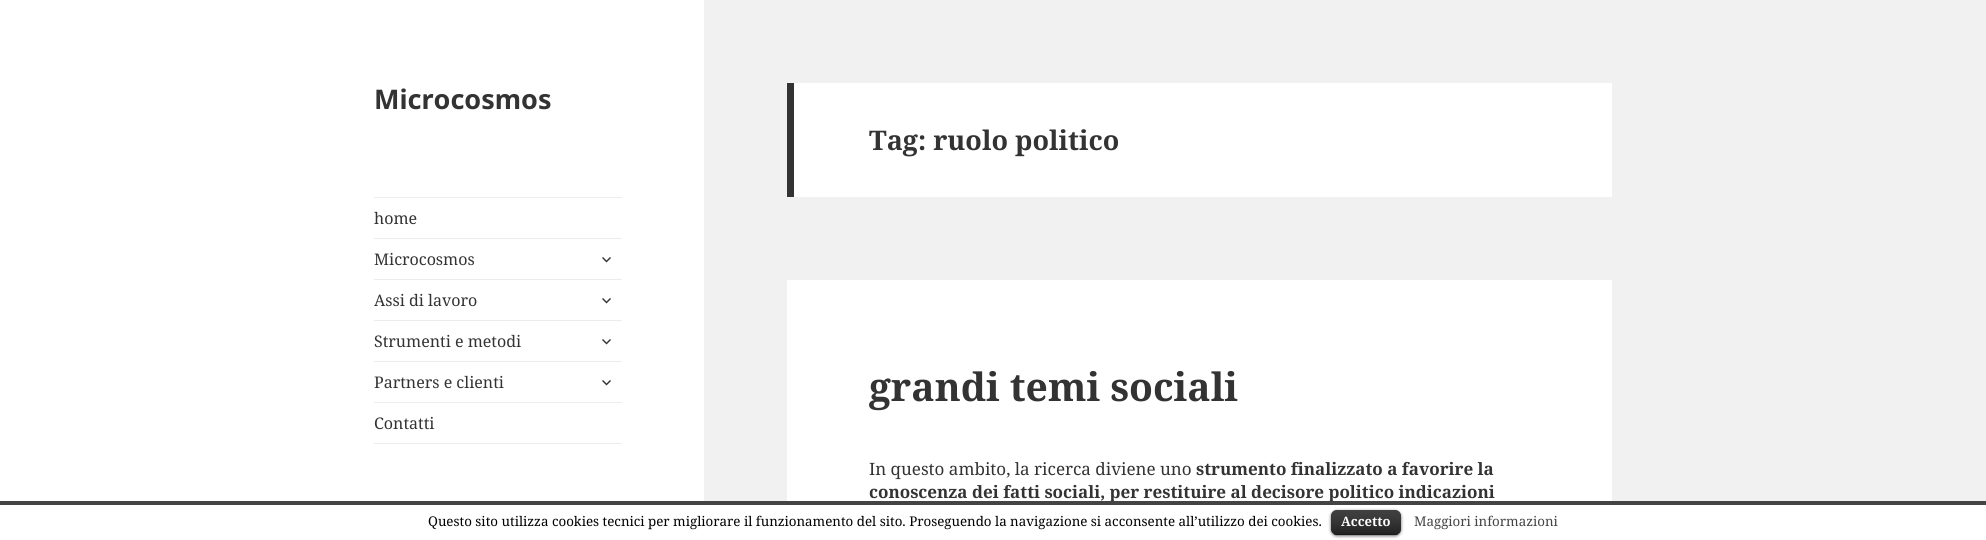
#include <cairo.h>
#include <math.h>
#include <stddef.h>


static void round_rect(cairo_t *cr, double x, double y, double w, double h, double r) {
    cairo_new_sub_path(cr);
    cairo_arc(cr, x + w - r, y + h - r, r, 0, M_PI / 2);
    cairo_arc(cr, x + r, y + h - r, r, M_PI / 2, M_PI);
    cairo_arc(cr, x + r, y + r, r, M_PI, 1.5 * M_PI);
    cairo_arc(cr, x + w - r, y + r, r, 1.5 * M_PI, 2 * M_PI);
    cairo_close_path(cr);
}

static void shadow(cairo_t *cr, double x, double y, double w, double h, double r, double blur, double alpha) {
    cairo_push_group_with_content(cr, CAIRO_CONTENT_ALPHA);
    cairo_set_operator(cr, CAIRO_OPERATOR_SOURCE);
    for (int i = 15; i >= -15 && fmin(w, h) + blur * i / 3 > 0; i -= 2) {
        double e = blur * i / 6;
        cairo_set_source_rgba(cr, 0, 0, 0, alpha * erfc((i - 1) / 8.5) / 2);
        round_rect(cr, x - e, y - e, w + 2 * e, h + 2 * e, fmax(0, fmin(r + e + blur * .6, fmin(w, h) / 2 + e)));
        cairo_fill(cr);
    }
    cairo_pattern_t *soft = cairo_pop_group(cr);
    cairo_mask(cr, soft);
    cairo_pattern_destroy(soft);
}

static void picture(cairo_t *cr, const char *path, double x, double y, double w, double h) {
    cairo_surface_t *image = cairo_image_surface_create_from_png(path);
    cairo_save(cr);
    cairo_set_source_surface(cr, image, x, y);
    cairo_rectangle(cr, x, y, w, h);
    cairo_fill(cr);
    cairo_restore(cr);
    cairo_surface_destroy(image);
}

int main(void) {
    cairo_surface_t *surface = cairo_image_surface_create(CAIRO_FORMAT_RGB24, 1986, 540);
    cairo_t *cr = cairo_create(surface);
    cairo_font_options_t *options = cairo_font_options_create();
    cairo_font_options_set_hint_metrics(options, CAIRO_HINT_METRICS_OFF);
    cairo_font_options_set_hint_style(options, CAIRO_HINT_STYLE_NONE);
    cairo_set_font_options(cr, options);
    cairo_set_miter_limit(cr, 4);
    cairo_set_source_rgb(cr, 0.945, 0.945, 0.945);
    cairo_paint(cr);
    cairo_set_source_rgb(cr, 1, 1, 1);
    cairo_rectangle(cr, 0, 0, 704, 501);
    cairo_fill(cr);
    cairo_select_font_face(cr, "Noto Sans", CAIRO_FONT_SLANT_NORMAL, CAIRO_FONT_WEIGHT_BOLD);
    cairo_set_font_size(cr, 27);
    cairo_set_source_rgb(cr, 0.2, 0.2, 0.2);
    cairo_move_to(cr, 374, 109);
    cairo_show_text(cr, "Microcosmos");
    cairo_set_source_rgb(cr, 0.922, 0.922, 0.922);
    cairo_rectangle(cr, 374, 197, 248, 1);
    cairo_fill(cr);
    cairo_rectangle(cr, 374, 443, 248, 1);
    cairo_fill(cr);
    cairo_select_font_face(cr, "Noto Serif", CAIRO_FONT_SLANT_NORMAL, CAIRO_FONT_WEIGHT_NORMAL);
    cairo_set_font_size(cr, 16);
    cairo_set_source_rgb(cr, 0.2, 0.2, 0.2);
    cairo_move_to(cr, 374, 224);
    cairo_show_text(cr, "home");
    cairo_set_source_rgb(cr, 0.922, 0.922, 0.922);
    cairo_rectangle(cr, 374, 238, 248, 1);
    cairo_fill(cr);
    cairo_set_source_rgb(cr, 0.2, 0.2, 0.2);
    cairo_move_to(cr, 374, 265);
    cairo_show_text(cr, "Microcosmos");
    picture(cr, "img1.png", 602, 257, 9, 6);
    cairo_set_source_rgb(cr, 0.922, 0.922, 0.922);
    cairo_rectangle(cr, 374, 279, 248, 1);
    cairo_fill(cr);
    cairo_set_source_rgb(cr, 0.2, 0.2, 0.2);
    cairo_move_to(cr, 374, 306);
    cairo_show_text(cr, "Assi di lavoro");
    picture(cr, "img1.png", 602, 298, 9, 6);
    cairo_set_source_rgb(cr, 0.922, 0.922, 0.922);
    cairo_rectangle(cr, 374, 320, 248, 1);
    cairo_fill(cr);
    cairo_set_source_rgb(cr, 0.2, 0.2, 0.2);
    cairo_move_to(cr, 374, 347);
    cairo_show_text(cr, "Strumenti e metodi");
    picture(cr, "img1.png", 602, 339, 9, 6);
    cairo_set_source_rgb(cr, 0.922, 0.922, 0.922);
    cairo_rectangle(cr, 374, 361, 248, 1);
    cairo_fill(cr);
    cairo_set_source_rgb(cr, 0.2, 0.2, 0.2);
    cairo_move_to(cr, 374, 388);
    cairo_show_text(cr, "Partners e clienti");
    picture(cr, "img1.png", 602, 380, 9, 6);
    cairo_set_source_rgb(cr, 0.922, 0.922, 0.922);
    cairo_rectangle(cr, 374, 402, 248, 1);
    cairo_fill(cr);
    cairo_set_source_rgb(cr, 0.2, 0.2, 0.2);
    cairo_move_to(cr, 374, 429);
    cairo_show_text(cr, "Contatti");
    cairo_set_source_rgb(cr, 1, 1, 1);
    cairo_rectangle(cr, 794, 83, 818, 114);
    cairo_fill(cr);
    cairo_set_source_rgb(cr, 0.2, 0.2, 0.2);
    cairo_rectangle(cr, 787, 83, 7, 114);
    cairo_fill(cr);
    cairo_select_font_face(cr, "Noto Serif", CAIRO_FONT_SLANT_NORMAL, CAIRO_FONT_WEIGHT_BOLD);
    cairo_set_font_size(cr, 27);
    cairo_move_to(cr, 869, 150);
    cairo_show_text(cr, "Tag: ruolo politico");
    cairo_set_source_rgb(cr, 1, 1, 1);
    cairo_rectangle(cr, 787, 280, 825, 221);
    cairo_fill(cr);
    cairo_set_font_size(cr, 39);
    cairo_set_source_rgb(cr, 0.2, 0.2, 0.2);
    cairo_move_to(cr, 869, 401);
    cairo_show_text(cr, "grandi temi sociali");
    cairo_select_font_face(cr, "Noto Serif", CAIRO_FONT_SLANT_NORMAL, CAIRO_FONT_WEIGHT_NORMAL);
    cairo_set_font_size(cr, 17);
    cairo_move_to(cr, 869, 475);
    cairo_show_text(cr, "In questo ambito, la ricerca diviene uno");
    cairo_select_font_face(cr, "Noto Serif", CAIRO_FONT_SLANT_NORMAL, CAIRO_FONT_WEIGHT_BOLD);
    cairo_move_to(cr, 1196, 475);
    cairo_show_text(cr, "strumento finalizzato a favorire la");
    cairo_move_to(cr, 869, 498);
    cairo_show_text(cr, "conoscenza dei fatti sociali, per restituire al decisore politico indicazioni");
    cairo_set_source_rgb(cr, 1, 1, 1);
    cairo_rectangle(cr, 0, 505, 1986, 35);
    cairo_fill(cr);
    cairo_set_source_rgb(cr, 0.267, 0.267, 0.267);
    cairo_rectangle(cr, 0, 501, 1986, 4);
    cairo_fill(cr);
    cairo_select_font_face(cr, "Noto Serif", CAIRO_FONT_SLANT_NORMAL, CAIRO_FONT_WEIGHT_NORMAL);
    cairo_set_font_size(cr, 13.33);
    cairo_set_source_rgb(cr, 0, 0, 0);
    cairo_move_to(cr, 428, 526);
    cairo_show_text(cr, "Questo sito utilizza cookies tecnici per migliorare il funzionamento del sito. Proseguendo la navigazione si acconsente all’utilizzo dei cookies.");
    cairo_set_source_rgb(cr, 0, 0, 0);
    shadow(cr, 1331, 511, 70, 25, 6, 1.5, 0.6);
    cairo_set_source_rgb(cr, 0, 0, 0);
    round_rect(cr, 1331, 510, 70, 25, 6);
    cairo_fill(cr);
    picture(cr, "img2.png", 1331, 510, 70, 25);
    cairo_set_source_rgba(cr, 0, 0, 0, 0.25);
    cairo_rectangle(cr, 1334, 534, 64, 1);
    cairo_fill(cr);
    cairo_select_font_face(cr, "Noto Serif", CAIRO_FONT_SLANT_NORMAL, CAIRO_FONT_WEIGHT_BOLD);
    cairo_set_font_size(cr, 13);
    cairo_set_source_rgb(cr, 1, 1, 1);
    cairo_move_to(cr, 1341, 526);
    cairo_show_text(cr, "Accetto");
    cairo_select_font_face(cr, "Noto Serif", CAIRO_FONT_SLANT_NORMAL, CAIRO_FONT_WEIGHT_NORMAL);
    cairo_set_font_size(cr, 13.33);
    cairo_set_source_rgb(cr, 0.267, 0.267, 0.267);
    cairo_move_to(cr, 1414, 526);
    cairo_show_text(cr, "Maggiori informazioni");
    cairo_surface_write_to_png(surface, "page.png");
    cairo_font_options_destroy(options);
    cairo_destroy(cr);
    cairo_surface_destroy(surface);
    return 0;
}
